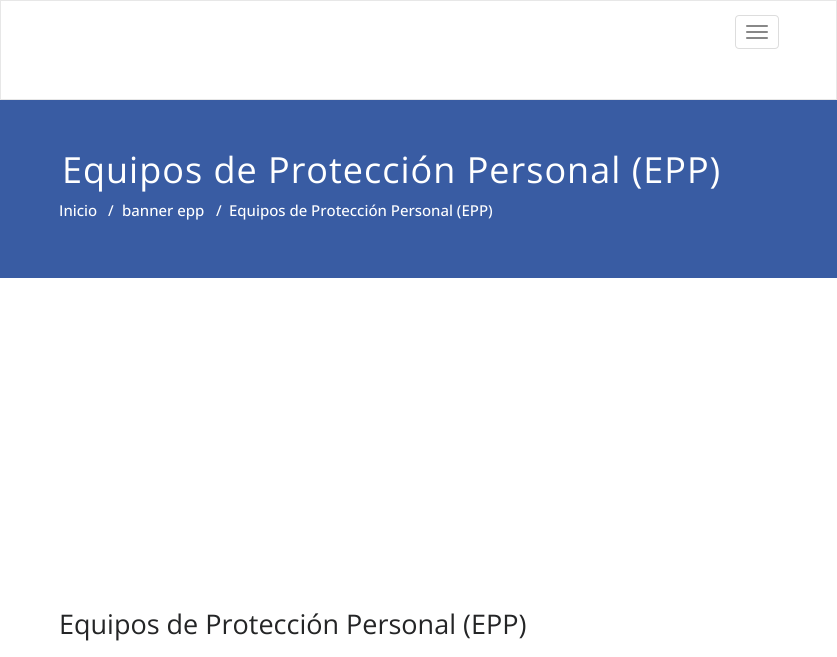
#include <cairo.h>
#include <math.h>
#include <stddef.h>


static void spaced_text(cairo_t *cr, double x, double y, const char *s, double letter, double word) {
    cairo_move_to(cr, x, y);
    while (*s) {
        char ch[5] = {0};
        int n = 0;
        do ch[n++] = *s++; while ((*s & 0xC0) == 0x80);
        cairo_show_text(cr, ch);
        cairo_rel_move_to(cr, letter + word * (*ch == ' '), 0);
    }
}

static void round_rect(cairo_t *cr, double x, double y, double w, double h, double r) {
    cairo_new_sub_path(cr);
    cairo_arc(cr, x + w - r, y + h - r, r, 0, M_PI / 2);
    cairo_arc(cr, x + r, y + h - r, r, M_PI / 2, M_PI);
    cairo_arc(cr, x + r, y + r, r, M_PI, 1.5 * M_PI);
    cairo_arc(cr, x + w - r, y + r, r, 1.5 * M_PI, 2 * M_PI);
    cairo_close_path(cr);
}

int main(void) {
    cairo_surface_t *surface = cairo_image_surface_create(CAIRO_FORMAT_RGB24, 837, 657);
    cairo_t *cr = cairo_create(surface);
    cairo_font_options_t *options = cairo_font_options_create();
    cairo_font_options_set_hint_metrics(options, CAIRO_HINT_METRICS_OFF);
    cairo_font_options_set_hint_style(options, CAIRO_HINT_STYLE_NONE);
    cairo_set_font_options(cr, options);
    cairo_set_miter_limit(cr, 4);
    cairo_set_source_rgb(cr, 1, 1, 1);
    cairo_paint(cr);
    cairo_rectangle(cr, 0.5, 0.5, 836, 99);
    cairo_set_source_rgb(cr, 0.906, 0.906, 0.906);
    cairo_set_line_width(cr, 1);
    cairo_stroke(cr);
    round_rect(cr, 735.5, 15.5, 43, 33, 3.5);
    cairo_set_source_rgb(cr, 0.867, 0.867, 0.867);
    cairo_stroke(cr);
    cairo_set_source_rgb(cr, 0.533, 0.533, 0.533);
    round_rect(cr, 746, 25, 22, 2, 1);
    cairo_fill(cr);
    round_rect(cr, 746, 31, 22, 2, 1);
    cairo_fill(cr);
    round_rect(cr, 746, 37, 22, 2, 1);
    cairo_fill(cr);
    cairo_set_source_rgb(cr, 0.224, 0.361, 0.639);
    cairo_rectangle(cr, 0, 100, 837, 178);
    cairo_fill(cr);
    cairo_select_font_face(cr, "Open Sans", CAIRO_FONT_SLANT_NORMAL, CAIRO_FONT_WEIGHT_NORMAL);
    cairo_set_font_size(cr, 36);
    cairo_set_source_rgb(cr, 1, 1, 1);
    spaced_text(cr, 62, 183, "Equipos de Protección Personal (EPP)", 1, 0);
    cairo_select_font_face(cr, "Open Sans Medium", CAIRO_FONT_SLANT_NORMAL, CAIRO_FONT_WEIGHT_NORMAL);
    cairo_set_font_size(cr, 15);
    cairo_move_to(cr, 59, 216);
    cairo_show_text(cr, "Inicio");
    cairo_move_to(cr, 108, 216);
    cairo_show_text(cr, "/");
    cairo_move_to(cr, 122, 216);
    cairo_show_text(cr, "banner epp");
    cairo_move_to(cr, 216, 216);
    cairo_show_text(cr, "/");
    cairo_move_to(cr, 229, 216);
    cairo_show_text(cr, "Equipos de Protección Personal (EPP)");
    cairo_select_font_face(cr, "Open Sans", CAIRO_FONT_SLANT_NORMAL, CAIRO_FONT_WEIGHT_NORMAL);
    cairo_set_font_size(cr, 27);
    cairo_set_source_rgb(cr, 0.141, 0.145, 0.149);
    cairo_move_to(cr, 59, 634);
    cairo_show_text(cr, "Equipos de Protección Personal (EPP)");
    cairo_surface_write_to_png(surface, "page.png");
    cairo_font_options_destroy(options);
    cairo_destroy(cr);
    cairo_surface_destroy(surface);
    return 0;
}
